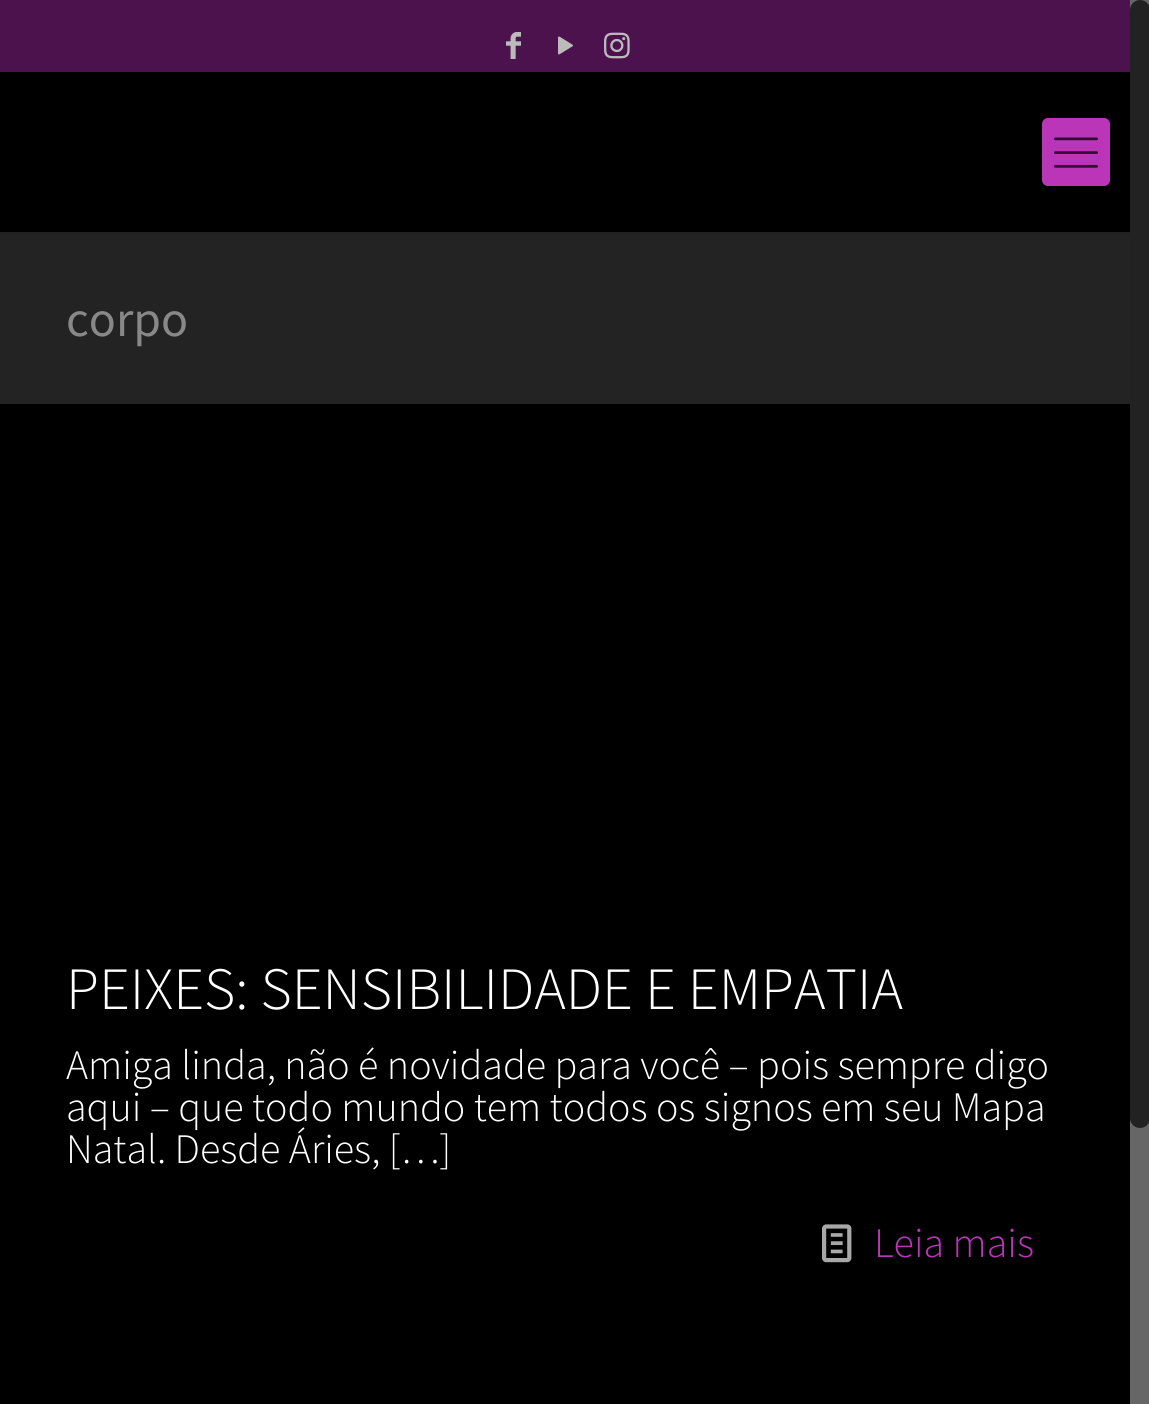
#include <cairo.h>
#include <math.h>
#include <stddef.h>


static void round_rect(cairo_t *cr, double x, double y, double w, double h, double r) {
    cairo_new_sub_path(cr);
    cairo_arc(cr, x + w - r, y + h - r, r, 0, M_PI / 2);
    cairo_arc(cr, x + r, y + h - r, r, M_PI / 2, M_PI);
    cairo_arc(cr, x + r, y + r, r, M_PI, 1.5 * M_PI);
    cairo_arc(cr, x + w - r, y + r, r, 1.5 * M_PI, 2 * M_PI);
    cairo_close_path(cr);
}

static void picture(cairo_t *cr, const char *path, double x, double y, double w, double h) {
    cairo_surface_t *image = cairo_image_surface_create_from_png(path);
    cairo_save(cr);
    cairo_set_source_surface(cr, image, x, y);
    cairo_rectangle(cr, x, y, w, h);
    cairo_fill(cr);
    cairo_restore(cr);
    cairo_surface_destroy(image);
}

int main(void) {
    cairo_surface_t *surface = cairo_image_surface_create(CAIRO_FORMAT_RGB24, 1149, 1404);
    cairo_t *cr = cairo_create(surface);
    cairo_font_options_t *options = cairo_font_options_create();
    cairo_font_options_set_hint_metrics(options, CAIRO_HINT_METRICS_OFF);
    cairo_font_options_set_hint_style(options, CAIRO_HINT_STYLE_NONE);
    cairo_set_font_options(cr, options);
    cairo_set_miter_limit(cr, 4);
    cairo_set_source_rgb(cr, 0, 0, 0);
    cairo_paint(cr);
    cairo_set_source_rgb(cr, 0.294, 0.071, 0.306);
    cairo_rectangle(cr, 0, 0, 1130, 72);
    cairo_fill(cr);
    picture(cr, "img1.png", 506, 32, 15, 27);
    picture(cr, "img2.png", 558, 36, 15, 19);
    picture(cr, "img3.png", 604, 32, 26, 27);
    cairo_set_source_rgb(cr, 0.129, 0.129, 0.129);
    cairo_rectangle(cr, 0, 232, 1130, 2);
    cairo_fill(cr);
    cairo_set_source_rgb(cr, 0.733, 0.208, 0.725);
    round_rect(cr, 1042, 118, 68, 68, 6);
    cairo_fill(cr);
    picture(cr, "img4.png", 1054, 137, 44, 31);
    cairo_set_source_rgb(cr, 0.137, 0.137, 0.137);
    cairo_rectangle(cr, 0, 234, 1130, 170);
    cairo_fill(cr);
    cairo_select_font_face(cr, "Source Sans Pro", CAIRO_FONT_SLANT_NORMAL, CAIRO_FONT_WEIGHT_NORMAL);
    cairo_set_font_size(cr, 50);
    cairo_set_source_rgb(cr, 0.533, 0.533, 0.533);
    cairo_move_to(cr, 66, 336);
    cairo_show_text(cr, "corpo");
    cairo_select_font_face(cr, "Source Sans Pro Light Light", CAIRO_FONT_SLANT_NORMAL, CAIRO_FONT_WEIGHT_NORMAL);
    cairo_set_font_size(cr, 60);
    cairo_set_source_rgb(cr, 1, 1, 1);
    cairo_move_to(cr, 66, 1009);
    cairo_show_text(cr, "PEIXES: SENSIBILIDADE E EMPATIA");
    cairo_set_font_size(cr, 42);
    cairo_move_to(cr, 66, 1079);
    cairo_show_text(cr, "Amiga linda, não é novidade para você – pois sempre digo");
    cairo_move_to(cr, 66, 1121);
    cairo_show_text(cr, "aqui – que todo mundo tem todos os signos em seu Mapa");
    cairo_move_to(cr, 66, 1163);
    cairo_show_text(cr, "Natal. Desde Áries, […]");
    picture(cr, "img5.png", 822, 1224, 30, 39);
    cairo_set_source_rgb(cr, 0.733, 0.208, 0.725);
    cairo_move_to(cr, 874, 1257);
    cairo_show_text(cr, "Leia mais");
    cairo_set_source_rgb(cr, 0.4, 0.4, 0.4);
    cairo_rectangle(cr, 1130, 0, 19, 1404);
    cairo_fill(cr);
    cairo_set_source_rgb(cr, 0.133, 0.133, 0.133);
    round_rect(cr, 1130, 0, 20, 1128, 10);
    cairo_fill(cr);
    cairo_surface_write_to_png(surface, "page.png");
    cairo_font_options_destroy(options);
    cairo_destroy(cr);
    cairo_surface_destroy(surface);
    return 0;
}
